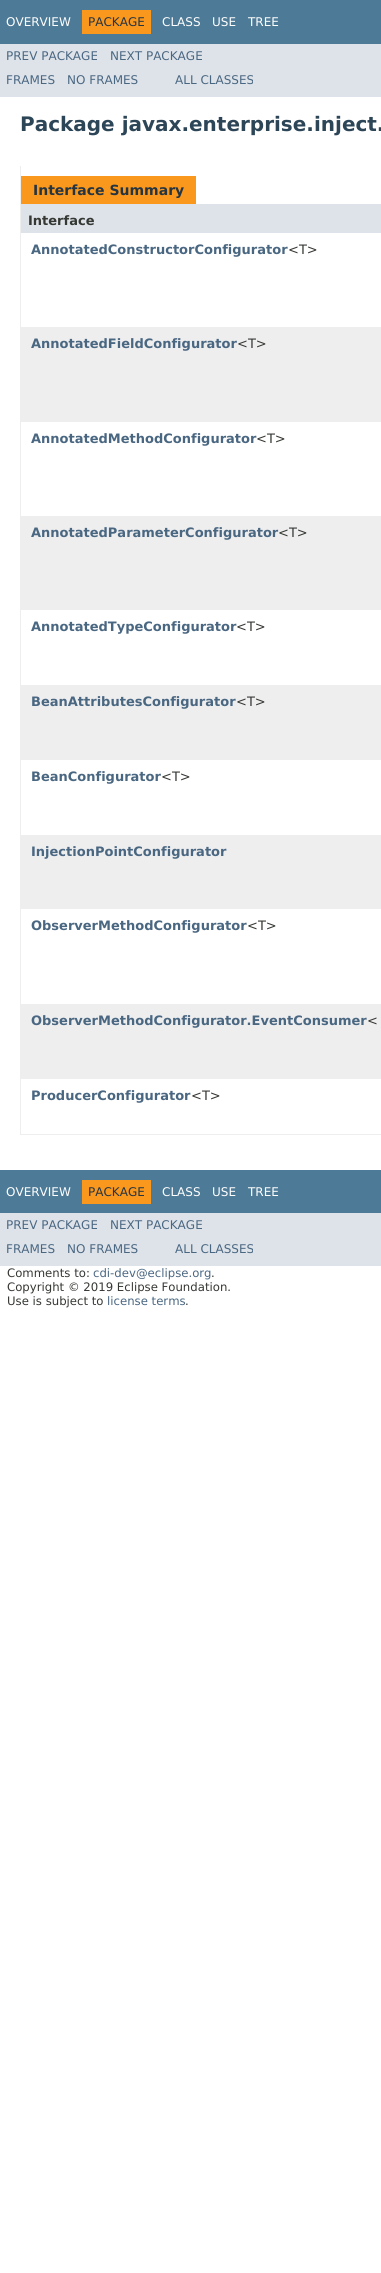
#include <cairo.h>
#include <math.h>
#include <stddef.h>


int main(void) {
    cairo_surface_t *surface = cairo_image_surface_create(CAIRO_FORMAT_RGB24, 381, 2273);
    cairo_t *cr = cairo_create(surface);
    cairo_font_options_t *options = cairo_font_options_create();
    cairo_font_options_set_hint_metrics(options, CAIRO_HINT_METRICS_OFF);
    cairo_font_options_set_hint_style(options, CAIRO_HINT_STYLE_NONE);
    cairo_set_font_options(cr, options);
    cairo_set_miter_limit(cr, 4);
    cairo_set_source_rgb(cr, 1, 1, 1);
    cairo_paint(cr);
    cairo_set_source_rgb(cr, 0.302, 0.478, 0.592);
    cairo_rectangle(cr, 0, 0, 381, 44);
    cairo_fill(cr);
    cairo_select_font_face(cr, "DejaVu Sans", CAIRO_FONT_SLANT_NORMAL, CAIRO_FONT_WEIGHT_NORMAL);
    cairo_set_font_size(cr, 12);
    cairo_set_source_rgb(cr, 1, 1, 1);
    cairo_move_to(cr, 6, 26);
    cairo_show_text(cr, "OVERVIEW");
    cairo_set_source_rgb(cr, 0.973, 0.596, 0.114);
    cairo_rectangle(cr, 82, 10, 69, 24);
    cairo_fill(cr);
    cairo_set_source_rgb(cr, 0.145, 0.204, 0.255);
    cairo_move_to(cr, 88, 26);
    cairo_show_text(cr, "PACKAGE");
    cairo_set_source_rgb(cr, 1, 1, 1);
    cairo_move_to(cr, 162, 26);
    cairo_show_text(cr, "CLASS");
    cairo_move_to(cr, 212, 26);
    cairo_show_text(cr, "USE");
    cairo_move_to(cr, 248, 26);
    cairo_show_text(cr, "TREE");
    cairo_set_source_rgb(cr, 0.871, 0.89, 0.914);
    cairo_rectangle(cr, 0, 44, 381, 53);
    cairo_fill(cr);
    cairo_set_source_rgb(cr, 0.29, 0.404, 0.51);
    cairo_move_to(cr, 6, 60);
    cairo_show_text(cr, "PREV PACKAGE");
    cairo_move_to(cr, 110, 60);
    cairo_show_text(cr, "NEXT PACKAGE");
    cairo_move_to(cr, 6, 84);
    cairo_show_text(cr, "FRAMES");
    cairo_move_to(cr, 67, 84);
    cairo_show_text(cr, "NO FRAMES");
    cairo_move_to(cr, 175, 84);
    cairo_show_text(cr, "ALL CLASSES");
    cairo_select_font_face(cr, "DejaVu Sans", CAIRO_FONT_SLANT_NORMAL, CAIRO_FONT_WEIGHT_BOLD);
    cairo_set_font_size(cr, 20);
    cairo_set_source_rgb(cr, 0.173, 0.271, 0.341);
    cairo_move_to(cr, 20, 131);
    cairo_show_text(cr, "Package javax.enterprise.inject.");
    cairo_set_source_rgb(cr, 0.933, 0.933, 0.933);
    cairo_rectangle(cr, 20, 1134, 361, 1);
    cairo_fill(cr);
    cairo_rectangle(cr, 20, 166, 1, 969);
    cairo_fill(cr);
    cairo_set_source_rgb(cr, 0.973, 0.596, 0.114);
    cairo_rectangle(cr, 21, 176, 175, 28);
    cairo_fill(cr);
    cairo_set_font_size(cr, 14);
    cairo_set_source_rgb(cr, 0.145, 0.204, 0.255);
    cairo_move_to(cr, 33, 195);
    cairo_show_text(cr, "Interface Summary");
    cairo_set_source_rgb(cr, 0.871, 0.89, 0.914);
    cairo_rectangle(cr, 21, 204, 360, 29);
    cairo_fill(cr);
    cairo_set_font_size(cr, 13);
    cairo_set_source_rgb(cr, 0.208, 0.22, 0.2);
    cairo_move_to(cr, 28, 225);
    cairo_show_text(cr, "Interface");
    cairo_set_source_rgb(cr, 0.29, 0.404, 0.51);
    cairo_move_to(cr, 31, 254);
    cairo_show_text(cr, "AnnotatedConstructorConfigurator");
    cairo_select_font_face(cr, "DejaVu Sans", CAIRO_FONT_SLANT_NORMAL, CAIRO_FONT_WEIGHT_NORMAL);
    cairo_set_source_rgb(cr, 0.208, 0.22, 0.2);
    cairo_move_to(cr, 288, 254);
    cairo_show_text(cr, "<T>");
    cairo_set_source_rgb(cr, 0.933, 0.933, 0.937);
    cairo_rectangle(cr, 21, 327, 360, 95);
    cairo_fill(cr);
    cairo_select_font_face(cr, "DejaVu Sans", CAIRO_FONT_SLANT_NORMAL, CAIRO_FONT_WEIGHT_BOLD);
    cairo_set_source_rgb(cr, 0.29, 0.404, 0.51);
    cairo_move_to(cr, 31, 348);
    cairo_show_text(cr, "AnnotatedFieldConfigurator");
    cairo_select_font_face(cr, "DejaVu Sans", CAIRO_FONT_SLANT_NORMAL, CAIRO_FONT_WEIGHT_NORMAL);
    cairo_set_source_rgb(cr, 0.208, 0.22, 0.2);
    cairo_move_to(cr, 237, 348);
    cairo_show_text(cr, "<T>");
    cairo_select_font_face(cr, "DejaVu Sans", CAIRO_FONT_SLANT_NORMAL, CAIRO_FONT_WEIGHT_BOLD);
    cairo_set_source_rgb(cr, 0.29, 0.404, 0.51);
    cairo_move_to(cr, 31, 443);
    cairo_show_text(cr, "AnnotatedMethodConfigurator");
    cairo_select_font_face(cr, "DejaVu Sans", CAIRO_FONT_SLANT_NORMAL, CAIRO_FONT_WEIGHT_NORMAL);
    cairo_set_source_rgb(cr, 0.208, 0.22, 0.2);
    cairo_move_to(cr, 256, 443);
    cairo_show_text(cr, "<T>");
    cairo_set_source_rgb(cr, 0.933, 0.933, 0.937);
    cairo_rectangle(cr, 21, 516, 360, 94);
    cairo_fill(cr);
    cairo_select_font_face(cr, "DejaVu Sans", CAIRO_FONT_SLANT_NORMAL, CAIRO_FONT_WEIGHT_BOLD);
    cairo_set_source_rgb(cr, 0.29, 0.404, 0.51);
    cairo_move_to(cr, 31, 537);
    cairo_show_text(cr, "AnnotatedParameterConfigurator");
    cairo_select_font_face(cr, "DejaVu Sans", CAIRO_FONT_SLANT_NORMAL, CAIRO_FONT_WEIGHT_NORMAL);
    cairo_set_source_rgb(cr, 0.208, 0.22, 0.2);
    cairo_move_to(cr, 278, 537);
    cairo_show_text(cr, "<T>");
    cairo_select_font_face(cr, "DejaVu Sans", CAIRO_FONT_SLANT_NORMAL, CAIRO_FONT_WEIGHT_BOLD);
    cairo_set_source_rgb(cr, 0.29, 0.404, 0.51);
    cairo_move_to(cr, 31, 631);
    cairo_show_text(cr, "AnnotatedTypeConfigurator");
    cairo_select_font_face(cr, "DejaVu Sans", CAIRO_FONT_SLANT_NORMAL, CAIRO_FONT_WEIGHT_NORMAL);
    cairo_set_source_rgb(cr, 0.208, 0.22, 0.2);
    cairo_move_to(cr, 236, 631);
    cairo_show_text(cr, "<T>");
    cairo_set_source_rgb(cr, 0.933, 0.933, 0.937);
    cairo_rectangle(cr, 21, 685, 360, 75);
    cairo_fill(cr);
    cairo_select_font_face(cr, "DejaVu Sans", CAIRO_FONT_SLANT_NORMAL, CAIRO_FONT_WEIGHT_BOLD);
    cairo_set_source_rgb(cr, 0.29, 0.404, 0.51);
    cairo_move_to(cr, 31, 706);
    cairo_show_text(cr, "BeanAttributesConfigurator");
    cairo_select_font_face(cr, "DejaVu Sans", CAIRO_FONT_SLANT_NORMAL, CAIRO_FONT_WEIGHT_NORMAL);
    cairo_set_source_rgb(cr, 0.208, 0.22, 0.2);
    cairo_move_to(cr, 236, 706);
    cairo_show_text(cr, "<T>");
    cairo_select_font_face(cr, "DejaVu Sans", CAIRO_FONT_SLANT_NORMAL, CAIRO_FONT_WEIGHT_BOLD);
    cairo_set_source_rgb(cr, 0.29, 0.404, 0.51);
    cairo_move_to(cr, 31, 781);
    cairo_show_text(cr, "BeanConfigurator");
    cairo_select_font_face(cr, "DejaVu Sans", CAIRO_FONT_SLANT_NORMAL, CAIRO_FONT_WEIGHT_NORMAL);
    cairo_set_source_rgb(cr, 0.208, 0.22, 0.2);
    cairo_move_to(cr, 161, 781);
    cairo_show_text(cr, "<T>");
    cairo_set_source_rgb(cr, 0.933, 0.933, 0.937);
    cairo_rectangle(cr, 21, 835, 360, 74);
    cairo_fill(cr);
    cairo_select_font_face(cr, "DejaVu Sans", CAIRO_FONT_SLANT_NORMAL, CAIRO_FONT_WEIGHT_BOLD);
    cairo_set_source_rgb(cr, 0.29, 0.404, 0.51);
    cairo_move_to(cr, 31, 856);
    cairo_show_text(cr, "InjectionPointConfigurator");
    cairo_move_to(cr, 31, 930);
    cairo_show_text(cr, "ObserverMethodConfigurator");
    cairo_select_font_face(cr, "DejaVu Sans", CAIRO_FONT_SLANT_NORMAL, CAIRO_FONT_WEIGHT_NORMAL);
    cairo_set_source_rgb(cr, 0.208, 0.22, 0.2);
    cairo_move_to(cr, 247, 930);
    cairo_show_text(cr, "<T>");
    cairo_set_source_rgb(cr, 0.933, 0.933, 0.937);
    cairo_rectangle(cr, 21, 1004, 360, 75);
    cairo_fill(cr);
    cairo_select_font_face(cr, "DejaVu Sans", CAIRO_FONT_SLANT_NORMAL, CAIRO_FONT_WEIGHT_BOLD);
    cairo_set_source_rgb(cr, 0.29, 0.404, 0.51);
    cairo_move_to(cr, 31, 1025);
    cairo_show_text(cr, "ObserverMethodConfigurator.EventConsumer");
    cairo_select_font_face(cr, "DejaVu Sans", CAIRO_FONT_SLANT_NORMAL, CAIRO_FONT_WEIGHT_NORMAL);
    cairo_set_source_rgb(cr, 0.208, 0.22, 0.2);
    cairo_move_to(cr, 367, 1025);
    cairo_show_text(cr, "<");
    cairo_select_font_face(cr, "DejaVu Sans", CAIRO_FONT_SLANT_NORMAL, CAIRO_FONT_WEIGHT_BOLD);
    cairo_set_source_rgb(cr, 0.29, 0.404, 0.51);
    cairo_move_to(cr, 31, 1100);
    cairo_show_text(cr, "ProducerConfigurator");
    cairo_select_font_face(cr, "DejaVu Sans", CAIRO_FONT_SLANT_NORMAL, CAIRO_FONT_WEIGHT_NORMAL);
    cairo_set_source_rgb(cr, 0.208, 0.22, 0.2);
    cairo_move_to(cr, 191, 1100);
    cairo_show_text(cr, "<T>");
    cairo_set_source_rgb(cr, 0.302, 0.478, 0.592);
    cairo_rectangle(cr, 0, 1170, 381, 43);
    cairo_fill(cr);
    cairo_set_font_size(cr, 12);
    cairo_set_source_rgb(cr, 1, 1, 1);
    cairo_move_to(cr, 6, 1196);
    cairo_show_text(cr, "OVERVIEW");
    cairo_set_source_rgb(cr, 0.973, 0.596, 0.114);
    cairo_rectangle(cr, 82, 1180, 69, 24);
    cairo_fill(cr);
    cairo_set_source_rgb(cr, 0.145, 0.204, 0.255);
    cairo_move_to(cr, 88, 1196);
    cairo_show_text(cr, "PACKAGE");
    cairo_set_source_rgb(cr, 1, 1, 1);
    cairo_move_to(cr, 162, 1196);
    cairo_show_text(cr, "CLASS");
    cairo_move_to(cr, 212, 1196);
    cairo_show_text(cr, "USE");
    cairo_move_to(cr, 248, 1196);
    cairo_show_text(cr, "TREE");
    cairo_set_source_rgb(cr, 0.871, 0.89, 0.914);
    cairo_rectangle(cr, 0, 1213, 381, 53);
    cairo_fill(cr);
    cairo_set_source_rgb(cr, 0.29, 0.404, 0.51);
    cairo_move_to(cr, 6, 1229);
    cairo_show_text(cr, "PREV PACKAGE");
    cairo_move_to(cr, 110, 1229);
    cairo_show_text(cr, "NEXT PACKAGE");
    cairo_move_to(cr, 6, 1253);
    cairo_show_text(cr, "FRAMES");
    cairo_move_to(cr, 67, 1253);
    cairo_show_text(cr, "NO FRAMES");
    cairo_move_to(cr, 175, 1253);
    cairo_show_text(cr, "ALL CLASSES");
    cairo_set_font_size(cr, 11.7);
    cairo_set_source_rgb(cr, 0.208, 0.22, 0.2);
    cairo_move_to(cr, 7, 1277);
    cairo_show_text(cr, "Comments to:");
    cairo_set_source_rgb(cr, 0.29, 0.404, 0.51);
    cairo_move_to(cr, 93, 1277);
    cairo_show_text(cr, "cdi-dev@eclipse.org");
    cairo_set_source_rgb(cr, 0.208, 0.22, 0.2);
    cairo_move_to(cr, 211, 1277);
    cairo_show_text(cr, ".");
    cairo_move_to(cr, 7, 1291);
    cairo_show_text(cr, "Copyright © 2019 Eclipse Foundation.");
    cairo_move_to(cr, 7, 1305);
    cairo_show_text(cr, "Use is subject to");
    cairo_set_source_rgb(cr, 0.29, 0.404, 0.51);
    cairo_move_to(cr, 107, 1305);
    cairo_show_text(cr, "license terms");
    cairo_set_source_rgb(cr, 0.208, 0.22, 0.2);
    cairo_move_to(cr, 185, 1305);
    cairo_show_text(cr, ".");
    cairo_surface_write_to_png(surface, "page.png");
    cairo_font_options_destroy(options);
    cairo_destroy(cr);
    cairo_surface_destroy(surface);
    return 0;
}
